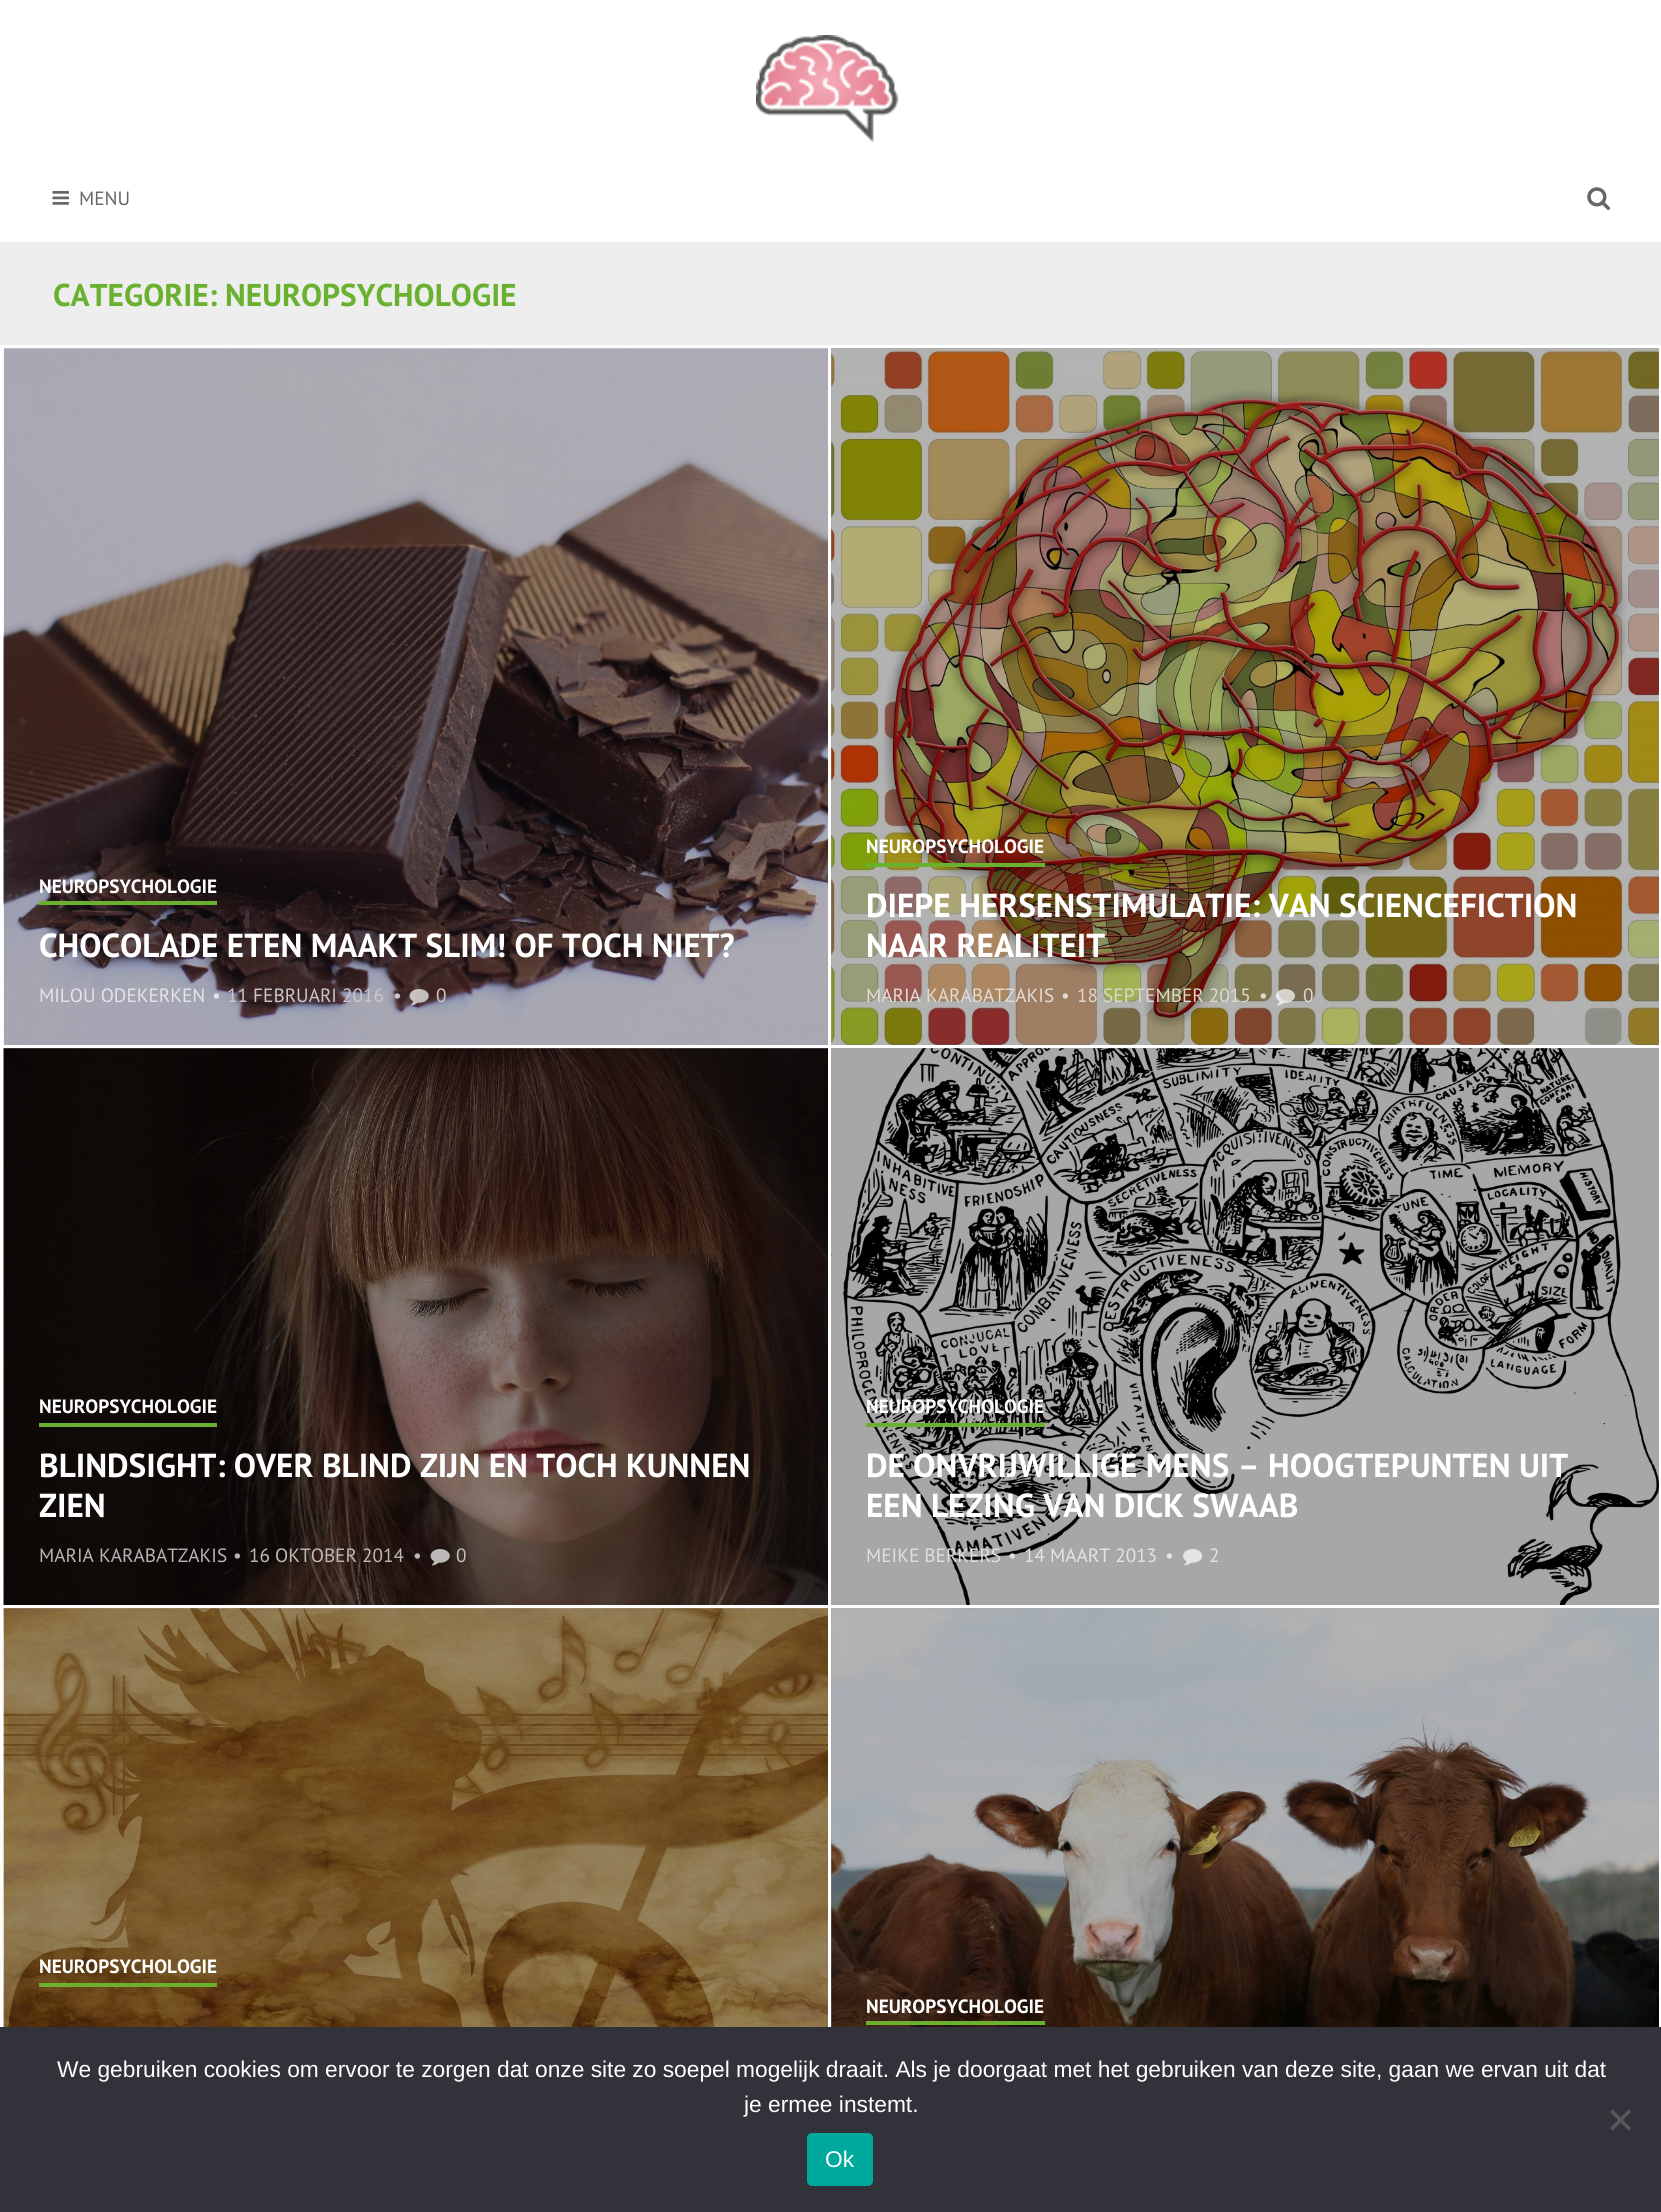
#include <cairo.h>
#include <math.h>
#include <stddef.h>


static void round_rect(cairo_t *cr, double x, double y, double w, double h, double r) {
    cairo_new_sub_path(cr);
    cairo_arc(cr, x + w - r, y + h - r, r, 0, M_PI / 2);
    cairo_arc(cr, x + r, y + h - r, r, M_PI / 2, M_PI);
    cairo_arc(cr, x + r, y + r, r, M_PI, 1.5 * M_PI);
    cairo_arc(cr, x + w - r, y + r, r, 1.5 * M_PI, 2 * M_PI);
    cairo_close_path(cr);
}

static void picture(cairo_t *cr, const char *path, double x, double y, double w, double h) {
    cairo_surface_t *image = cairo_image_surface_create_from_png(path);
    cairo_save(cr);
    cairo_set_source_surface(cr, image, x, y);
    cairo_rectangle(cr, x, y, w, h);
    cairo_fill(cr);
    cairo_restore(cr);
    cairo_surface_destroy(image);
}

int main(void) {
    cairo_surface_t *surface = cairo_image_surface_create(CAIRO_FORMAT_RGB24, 1661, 2212);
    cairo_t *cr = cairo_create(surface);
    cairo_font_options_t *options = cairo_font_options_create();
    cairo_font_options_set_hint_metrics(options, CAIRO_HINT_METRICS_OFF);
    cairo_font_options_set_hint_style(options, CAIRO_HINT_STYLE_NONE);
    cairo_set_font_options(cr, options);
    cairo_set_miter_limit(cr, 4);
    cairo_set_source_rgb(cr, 1, 1, 1);
    cairo_paint(cr);
    picture(cr, "img1.png", 756, 35, 143, 108);
    picture(cr, "img2.png", 52, 191, 17, 14);
    cairo_select_font_face(cr, "PT Sans", CAIRO_FONT_SLANT_NORMAL, CAIRO_FONT_WEIGHT_NORMAL);
    cairo_set_font_size(cr, 19.25);
    cairo_set_source_rgb(cr, 0.4, 0.4, 0.4);
    cairo_move_to(cr, 79, 205);
    cairo_show_text(cr, "MENU");
    picture(cr, "img3.png", 1587, 187, 23, 23);
    cairo_set_source_rgb(cr, 0.933, 0.933, 0.933);
    cairo_rectangle(cr, 0, 244, 1661, 101);
    cairo_fill(cr);
    cairo_set_source_rgb(cr, 0.941, 0.941, 0.941);
    cairo_rectangle(cr, 0, 242, 1661, 2);
    cairo_fill(cr);
    cairo_select_font_face(cr, "PT Sans", CAIRO_FONT_SLANT_NORMAL, CAIRO_FONT_WEIGHT_BOLD);
    cairo_set_font_size(cr, 31.5);
    cairo_set_source_rgb(cr, 0.42, 0.694, 0.188);
    cairo_move_to(cr, 53, 306);
    cairo_show_text(cr, "CATEGORIE: NEUROPSYCHOLOGIE");
    picture(cr, "img4.png", 3, 348, 825, 697);
    cairo_rectangle(cr, 39, 901, 178, 4);
    cairo_fill(cr);
    cairo_set_font_size(cr, 19.25);
    cairo_set_source_rgb(cr, 1, 1, 1);
    cairo_move_to(cr, 39, 893);
    cairo_show_text(cr, "NEUROPSYCHOLOGIE");
    cairo_set_font_size(cr, 33.25);
    cairo_move_to(cr, 39, 957);
    cairo_show_text(cr, "CHOCOLADE ETEN MAAKT SLIM! OF TOCH NIET?");
    cairo_select_font_face(cr, "PT Sans", CAIRO_FONT_SLANT_NORMAL, CAIRO_FONT_WEIGHT_NORMAL);
    cairo_set_font_size(cr, 19.25);
    cairo_set_source_rgb(cr, 0.894, 0.894, 0.91);
    cairo_move_to(cr, 39, 1002);
    cairo_show_text(cr, "MILOU ODEKERKEN");
    cairo_move_to(cr, 212, 1002);
    cairo_show_text(cr, "•");
    cairo_set_source_rgb(cr, 0.8, 0.78, 0.788);
    cairo_move_to(cr, 227, 1002);
    cairo_show_text(cr, "11 FEBRUARI 2016");
    cairo_move_to(cr, 393, 1002);
    cairo_show_text(cr, "•");
    picture(cr, "img5.png", 409, 989, 20, 17);
    cairo_move_to(cr, 436, 1002);
    cairo_show_text(cr, "0");
    cairo_set_source_rgb(cr, 0.933, 0.933, 0.933);
    cairo_rectangle(cr, 831, 348, 828, 697);
    cairo_fill(cr);
    picture(cr, "img6.png", 831, 348, 828, 697);
    cairo_set_source_rgba(cr, 0, 0, 0, 0.3);
    cairo_rectangle(cr, 831, 348, 828, 697);
    cairo_fill(cr);
    cairo_set_source_rgb(cr, 0.42, 0.694, 0.188);
    cairo_rectangle(cr, 866, 863, 179, 4);
    cairo_fill(cr);
    cairo_select_font_face(cr, "PT Sans", CAIRO_FONT_SLANT_NORMAL, CAIRO_FONT_WEIGHT_BOLD);
    cairo_set_source_rgb(cr, 1, 1, 1);
    cairo_move_to(cr, 866, 853);
    cairo_show_text(cr, "NEUROPSYCHOLOGIE");
    cairo_set_font_size(cr, 33.25);
    cairo_move_to(cr, 866, 917);
    cairo_show_text(cr, "DIEPE HERSENSTIMULATIE: VAN SCIENCEFICTION");
    cairo_move_to(cr, 866, 957);
    cairo_show_text(cr, "NAAR REALITEIT");
    cairo_select_font_face(cr, "PT Sans", CAIRO_FONT_SLANT_NORMAL, CAIRO_FONT_WEIGHT_NORMAL);
    cairo_set_font_size(cr, 19.25);
    cairo_set_source_rgb(cr, 0.89, 0.859, 0.831);
    cairo_move_to(cr, 866, 1002);
    cairo_show_text(cr, "MARIA KARABATZAKIS");
    cairo_move_to(cr, 1061, 1002);
    cairo_show_text(cr, "•");
    cairo_set_source_rgb(cr, 0.867, 0.847, 0.804);
    cairo_move_to(cr, 1077, 1002);
    cairo_show_text(cr, "18 SEPTEMBER 2015");
    cairo_move_to(cr, 1259, 1002);
    cairo_show_text(cr, "•");
    picture(cr, "img7.png", 1275, 989, 20, 17);
    cairo_move_to(cr, 1303, 1002);
    cairo_show_text(cr, "0");
    picture(cr, "img8.png", 3, 1048, 825, 557);
    cairo_set_source_rgba(cr, 0, 0, 0, 0.3);
    cairo_rectangle(cr, 4, 1048, 824, 557);
    cairo_fill(cr);
    cairo_set_source_rgb(cr, 0.42, 0.694, 0.188);
    cairo_rectangle(cr, 39, 1423, 178, 4);
    cairo_fill(cr);
    cairo_select_font_face(cr, "PT Sans", CAIRO_FONT_SLANT_NORMAL, CAIRO_FONT_WEIGHT_BOLD);
    cairo_set_source_rgb(cr, 1, 1, 1);
    cairo_move_to(cr, 39, 1413);
    cairo_show_text(cr, "NEUROPSYCHOLOGIE");
    cairo_set_font_size(cr, 33.25);
    cairo_move_to(cr, 39, 1477);
    cairo_show_text(cr, "BLINDSIGHT: OVER BLIND ZIJN EN TOCH KUNNEN");
    cairo_move_to(cr, 39, 1517);
    cairo_show_text(cr, "ZIEN");
    cairo_select_font_face(cr, "PT Sans", CAIRO_FONT_SLANT_NORMAL, CAIRO_FONT_WEIGHT_NORMAL);
    cairo_set_font_size(cr, 19.25);
    cairo_set_source_rgb(cr, 0.714, 0.71, 0.71);
    cairo_move_to(cr, 39, 1562);
    cairo_show_text(cr, "MARIA KARABATZAKIS");
    cairo_move_to(cr, 233, 1562);
    cairo_show_text(cr, "•");
    cairo_set_source_rgb(cr, 0.745, 0.729, 0.725);
    cairo_move_to(cr, 249, 1562);
    cairo_show_text(cr, "16 OKTOBER 2014");
    cairo_move_to(cr, 413, 1562);
    cairo_show_text(cr, "•");
    picture(cr, "img9.png", 430, 1549, 20, 17);
    cairo_set_source_rgb(cr, 0.769, 0.757, 0.749);
    cairo_move_to(cr, 456, 1562);
    cairo_show_text(cr, "0");
    cairo_set_source_rgb(cr, 0.933, 0.933, 0.933);
    cairo_rectangle(cr, 831, 1048, 828, 557);
    cairo_fill(cr);
    picture(cr, "img10.png", 831, 1048, 828, 557);
    cairo_set_source_rgba(cr, 0, 0, 0, 0.3);
    cairo_rectangle(cr, 831, 1048, 828, 557);
    cairo_fill(cr);
    cairo_set_source_rgb(cr, 0.42, 0.694, 0.188);
    cairo_rectangle(cr, 866, 1423, 179, 4);
    cairo_fill(cr);
    cairo_select_font_face(cr, "PT Sans", CAIRO_FONT_SLANT_NORMAL, CAIRO_FONT_WEIGHT_BOLD);
    cairo_set_source_rgb(cr, 1, 1, 1);
    cairo_move_to(cr, 866, 1413);
    cairo_show_text(cr, "NEUROPSYCHOLOGIE");
    cairo_set_font_size(cr, 33.25);
    cairo_move_to(cr, 866, 1477);
    cairo_show_text(cr, "DE ONVRIJWILLIGE MENS – HOOGTEPUNTEN UIT");
    cairo_move_to(cr, 866, 1517);
    cairo_show_text(cr, "EEN LEZING VAN DICK SWAAB");
    cairo_select_font_face(cr, "PT Sans", CAIRO_FONT_SLANT_NORMAL, CAIRO_FONT_WEIGHT_NORMAL);
    cairo_set_font_size(cr, 19.25);
    cairo_set_source_rgb(cr, 0.875, 0.875, 0.875);
    cairo_move_to(cr, 866, 1562);
    cairo_show_text(cr, "MEIKE BERKERS");
    cairo_move_to(cr, 1008, 1562);
    cairo_show_text(cr, "•");
    cairo_set_source_rgb(cr, 0.894, 0.894, 0.91);
    cairo_move_to(cr, 1024, 1562);
    cairo_show_text(cr, "14 MAART 2013");
    cairo_move_to(cr, 1165, 1562);
    cairo_show_text(cr, "•");
    picture(cr, "img11.png", 1183, 1549, 20, 17);
    cairo_move_to(cr, 1209, 1562);
    cairo_show_text(cr, "2");
    picture(cr, "img12.png", 3, 1608, 825, 419);
    cairo_set_source_rgba(cr, 0, 0, 0, 0.3);
    cairo_rectangle(cr, 4, 1608, 824, 419);
    cairo_fill(cr);
    cairo_set_source_rgb(cr, 0.42, 0.694, 0.188);
    cairo_rectangle(cr, 39, 1983, 178, 4);
    cairo_fill(cr);
    cairo_select_font_face(cr, "PT Sans", CAIRO_FONT_SLANT_NORMAL, CAIRO_FONT_WEIGHT_BOLD);
    cairo_set_source_rgb(cr, 1, 1, 1);
    cairo_move_to(cr, 39, 1973);
    cairo_show_text(cr, "NEUROPSYCHOLOGIE");
    cairo_set_source_rgb(cr, 0.933, 0.933, 0.933);
    cairo_rectangle(cr, 831, 1608, 828, 419);
    cairo_fill(cr);
    picture(cr, "img13.png", 831, 1608, 828, 419);
    cairo_set_source_rgba(cr, 0, 0, 0, 0.3);
    cairo_rectangle(cr, 831, 1608, 828, 419);
    cairo_fill(cr);
    cairo_set_source_rgb(cr, 0.42, 0.694, 0.188);
    cairo_rectangle(cr, 866, 2021, 179, 4);
    cairo_fill(cr);
    cairo_set_source_rgb(cr, 1, 1, 1);
    cairo_move_to(cr, 866, 2013);
    cairo_show_text(cr, "NEUROPSYCHOLOGIE");
    cairo_set_source_rgb(cr, 0.196, 0.196, 0.227);
    cairo_rectangle(cr, 0, 2027, 1661, 185);
    cairo_fill(cr);
    cairo_select_font_face(cr, "Liberation Sans", CAIRO_FONT_SLANT_NORMAL, CAIRO_FONT_WEIGHT_NORMAL);
    cairo_set_font_size(cr, 22.75);
    cairo_set_source_rgb(cr, 1, 1, 1);
    cairo_move_to(cr, 57, 2077);
    cairo_show_text(cr, "We gebruiken cookies om ervoor te zorgen dat onze site zo soepel mogelijk draait. Als je doorgaat met het gebruiken van deze site, gaan we ervan uit dat");
    cairo_move_to(cr, 744, 2112);
    cairo_show_text(cr, "je ermee instemt.");
    cairo_set_source_rgb(cr, 0.349, 0.349, 0.365);
    cairo_new_path(cr);
    cairo_move_to(cr, 1628.5, 2109.5);
    cairo_line_to(cr, 1631, 2112);
    cairo_line_to(cr, 1612.5, 2130.5);
    cairo_line_to(cr, 1610, 2128);
    cairo_close_path(cr);
    cairo_fill(cr);
    cairo_new_path(cr);
    cairo_move_to(cr, 1610, 2112);
    cairo_line_to(cr, 1612.5, 2109.5);
    cairo_line_to(cr, 1631, 2128);
    cairo_line_to(cr, 1628.5, 2130.5);
    cairo_close_path(cr);
    cairo_fill(cr);
    cairo_set_source_rgb(cr, 0, 0.663, 0.616);
    round_rect(cr, 807, 2133, 66, 53, 5);
    cairo_fill(cr);
    cairo_set_source_rgb(cr, 1, 1, 1);
    cairo_move_to(cr, 825, 2167);
    cairo_show_text(cr, "Ok");
    cairo_surface_write_to_png(surface, "page.png");
    cairo_font_options_destroy(options);
    cairo_destroy(cr);
    cairo_surface_destroy(surface);
    return 0;
}
